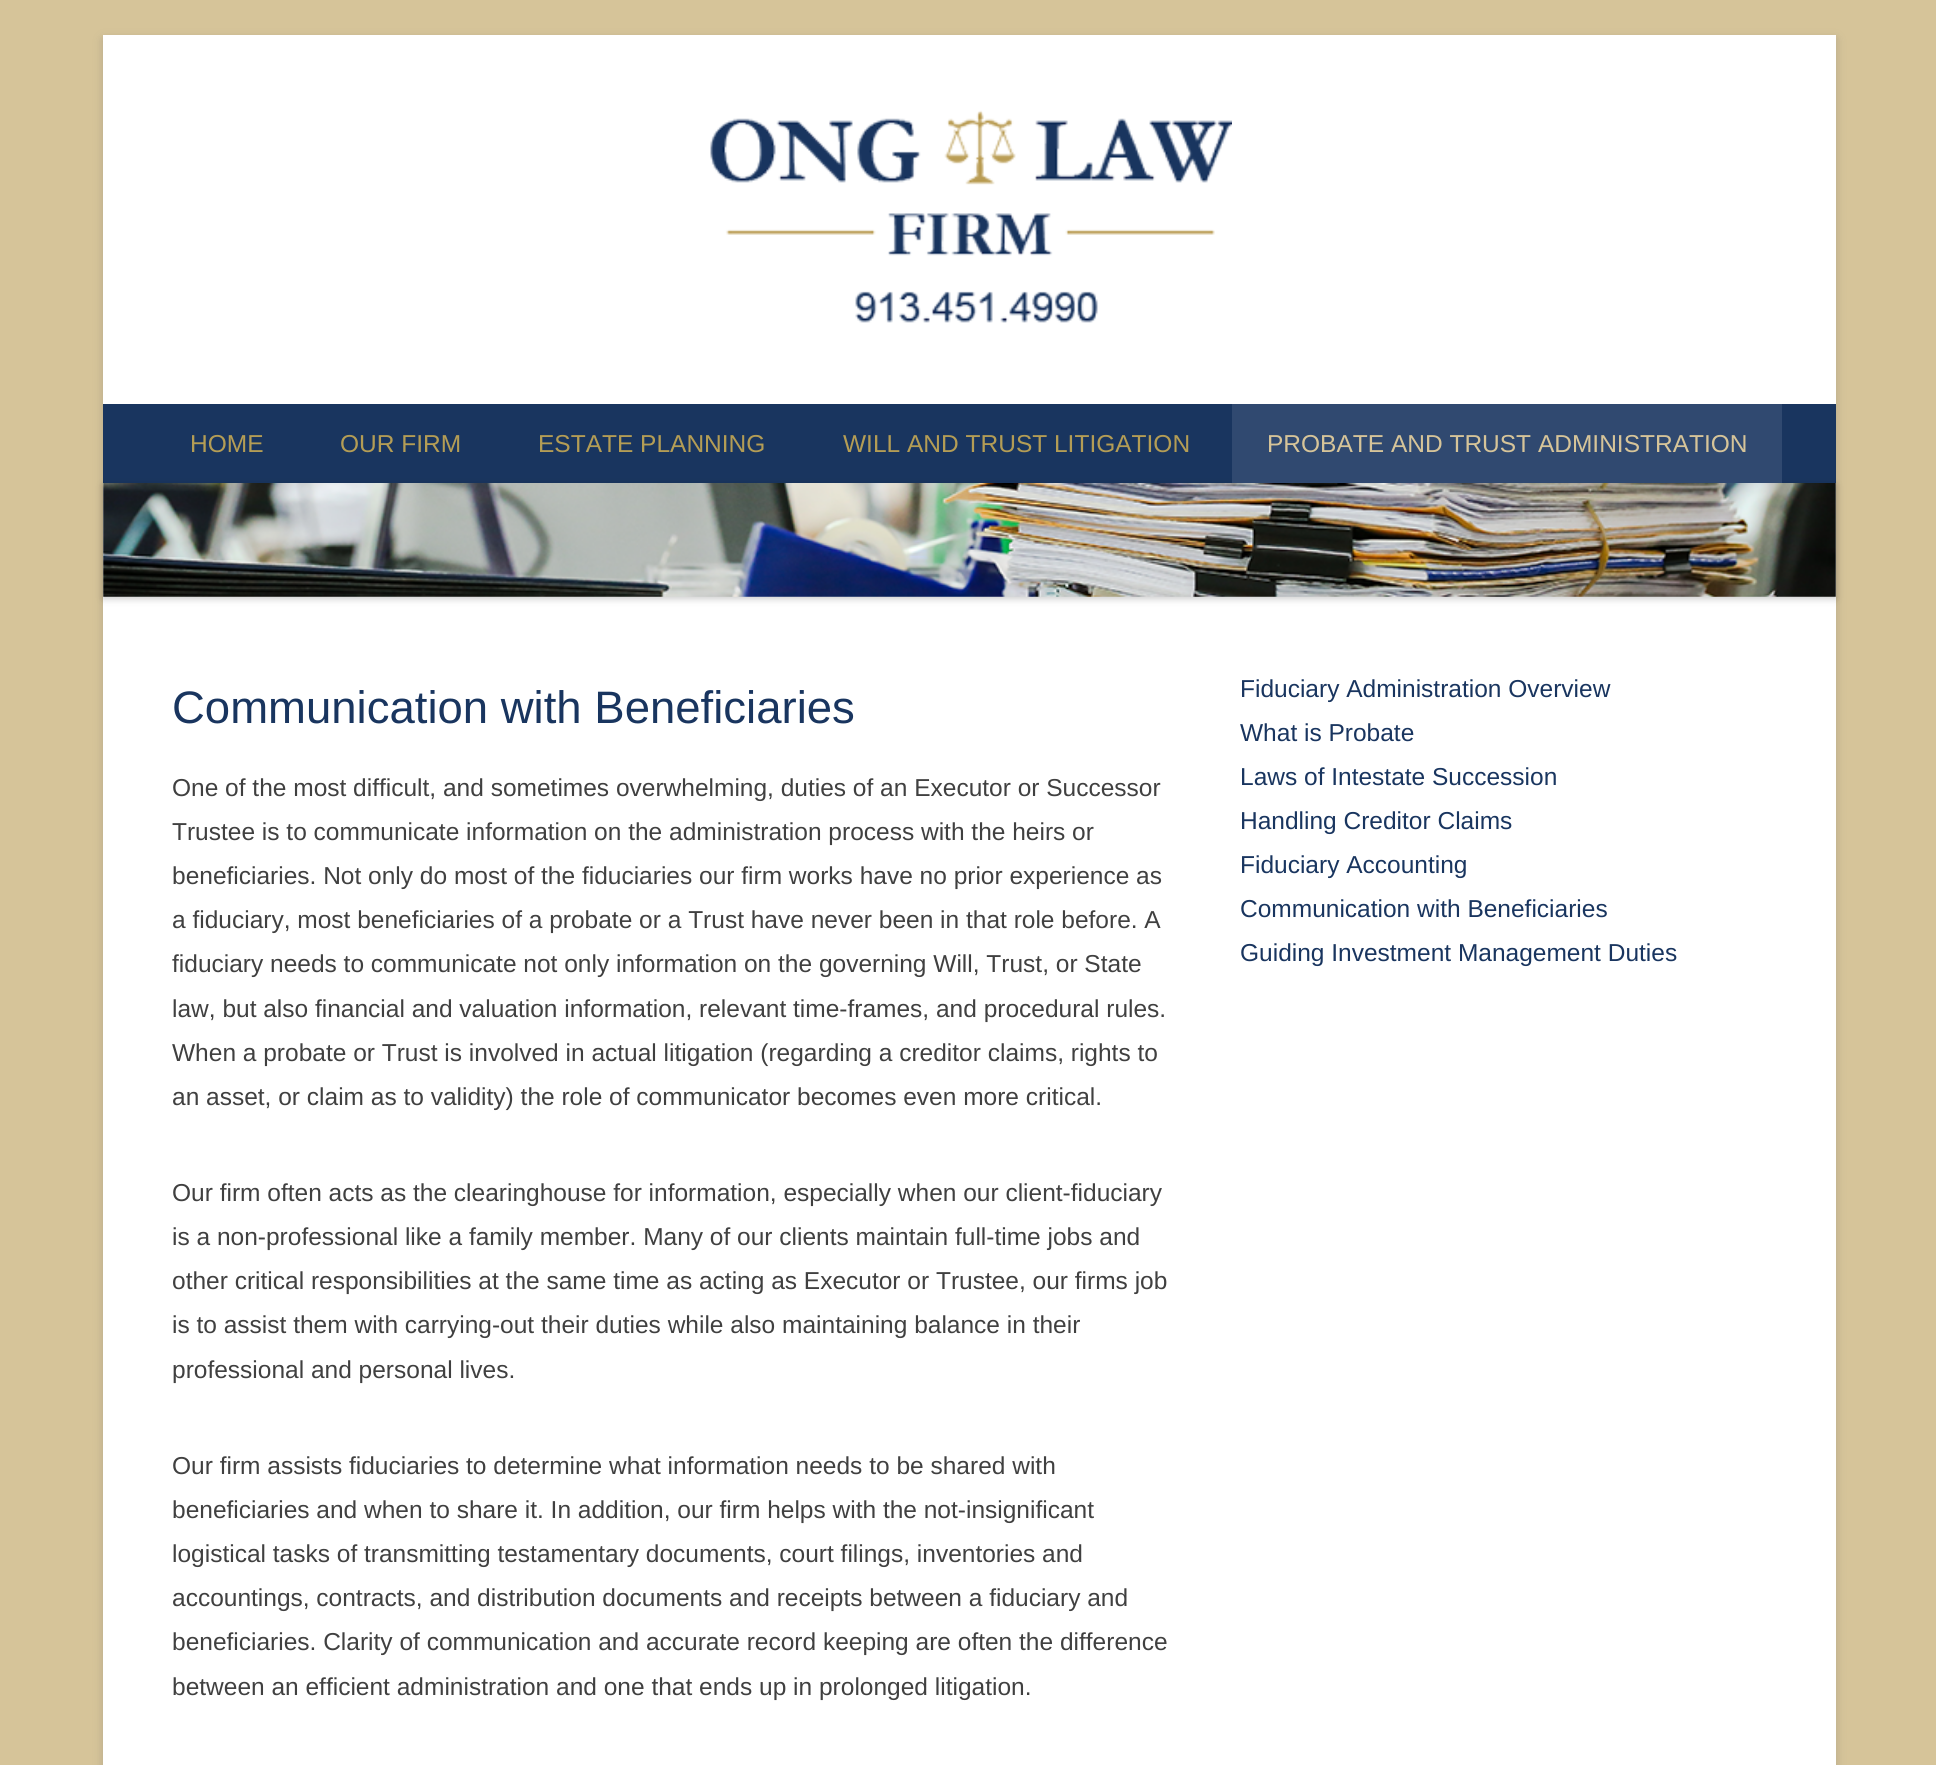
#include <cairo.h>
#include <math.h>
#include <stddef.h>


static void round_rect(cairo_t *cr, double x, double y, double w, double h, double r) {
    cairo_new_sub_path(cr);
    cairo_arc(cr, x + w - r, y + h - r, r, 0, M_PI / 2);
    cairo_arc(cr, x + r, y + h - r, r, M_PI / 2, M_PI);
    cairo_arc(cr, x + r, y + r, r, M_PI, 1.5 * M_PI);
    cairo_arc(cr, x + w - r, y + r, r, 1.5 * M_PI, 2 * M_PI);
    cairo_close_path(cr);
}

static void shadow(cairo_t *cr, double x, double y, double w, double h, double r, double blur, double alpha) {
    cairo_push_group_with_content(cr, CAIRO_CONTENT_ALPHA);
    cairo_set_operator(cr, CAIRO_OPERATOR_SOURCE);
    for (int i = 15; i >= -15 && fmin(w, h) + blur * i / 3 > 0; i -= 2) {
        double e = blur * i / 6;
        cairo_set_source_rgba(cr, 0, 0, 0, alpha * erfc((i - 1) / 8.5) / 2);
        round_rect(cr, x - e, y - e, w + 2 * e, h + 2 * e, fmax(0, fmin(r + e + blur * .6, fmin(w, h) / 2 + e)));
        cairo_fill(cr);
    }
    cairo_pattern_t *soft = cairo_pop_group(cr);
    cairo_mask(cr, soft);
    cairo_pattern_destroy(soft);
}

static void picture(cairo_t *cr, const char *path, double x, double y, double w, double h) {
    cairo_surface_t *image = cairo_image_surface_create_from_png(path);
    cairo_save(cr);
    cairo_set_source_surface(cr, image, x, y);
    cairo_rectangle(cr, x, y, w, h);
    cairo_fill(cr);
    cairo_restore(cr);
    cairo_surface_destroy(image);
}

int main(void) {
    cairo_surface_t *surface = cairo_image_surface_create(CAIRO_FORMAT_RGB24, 1936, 1765);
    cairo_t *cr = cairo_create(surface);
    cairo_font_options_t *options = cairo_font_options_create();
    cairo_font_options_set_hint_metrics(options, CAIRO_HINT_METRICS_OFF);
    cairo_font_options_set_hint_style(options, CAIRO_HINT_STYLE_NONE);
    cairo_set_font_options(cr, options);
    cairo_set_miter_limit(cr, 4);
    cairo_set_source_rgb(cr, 0.839, 0.769, 0.6);
    cairo_paint(cr);
    cairo_set_source_rgb(cr, 0.392, 0.392, 0.392);
    shadow(cr, 103, 39, 1733, 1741, 0, 5, 0.3);
    cairo_set_source_rgb(cr, 1, 1, 1);
    cairo_rectangle(cr, 103, 35, 1733, 1730);
    cairo_fill(cr);
    picture(cr, "img1.png", 710, 110, 522, 213);
    cairo_set_source_rgb(cr, 0.098, 0.208, 0.373);
    cairo_rectangle(cr, 103, 404, 1733, 79);
    cairo_fill(cr);
    cairo_select_font_face(cr, "Liberation Sans", CAIRO_FONT_SLANT_NORMAL, CAIRO_FONT_WEIGHT_NORMAL);
    cairo_set_font_size(cr, 24.5);
    cairo_set_source_rgb(cr, 0.706, 0.616, 0.333);
    cairo_move_to(cr, 190, 452);
    cairo_show_text(cr, "HOME");
    cairo_move_to(cr, 340, 452);
    cairo_show_text(cr, "OUR FIRM");
    cairo_move_to(cr, 538, 452);
    cairo_show_text(cr, "ESTATE PLANNING");
    cairo_move_to(cr, 843, 452);
    cairo_show_text(cr, "WILL AND TRUST LITIGATION");
    cairo_set_source_rgb(cr, 0, 0, 0);
    shadow(cr, 103, 485, 1733, 114, 0, 3.5, 0.2);
    cairo_set_source_rgb(cr, 0.188, 0.286, 0.439);
    cairo_rectangle(cr, 1232, 404, 550, 79);
    cairo_fill(cr);
    cairo_set_source_rgb(cr, 0.839, 0.769, 0.6);
    cairo_move_to(cr, 1267, 452);
    cairo_show_text(cr, "PROBATE AND TRUST ADMINISTRATION");
    picture(cr, "img2.png", 103, 483, 1733, 114);
    cairo_set_font_size(cr, 45.5);
    cairo_set_source_rgb(cr, 0.098, 0.208, 0.373);
    cairo_move_to(cr, 172, 723);
    cairo_show_text(cr, "Communication with Beneficiaries");
    cairo_set_font_size(cr, 24.5);
    cairo_set_source_rgb(cr, 0.251, 0.251, 0.251);
    cairo_move_to(cr, 172, 796);
    cairo_show_text(cr, "One of the most difficult, and sometimes overwhelming, duties of an Executor or Successor");
    cairo_move_to(cr, 172, 840);
    cairo_show_text(cr, "Trustee is to communicate information on the administration process with the heirs or");
    cairo_move_to(cr, 172, 884);
    cairo_show_text(cr, "beneficiaries. Not only do most of the fiduciaries our firm works have no prior experience as");
    cairo_move_to(cr, 172, 928);
    cairo_show_text(cr, "a fiduciary, most beneficiaries of a probate or a Trust have never been in that role before. A");
    cairo_move_to(cr, 172, 972);
    cairo_show_text(cr, "fiduciary needs to communicate not only information on the governing Will, Trust, or State");
    cairo_move_to(cr, 172, 1017);
    cairo_show_text(cr, "law, but also financial and valuation information, relevant time-frames, and procedural rules.");
    cairo_move_to(cr, 172, 1061);
    cairo_show_text(cr, "When a probate or Trust is involved in actual litigation (regarding a creditor claims, rights to");
    cairo_move_to(cr, 172, 1105);
    cairo_show_text(cr, "an asset, or claim as to validity) the role of communicator becomes even more critical.");
    cairo_move_to(cr, 172, 1201);
    cairo_show_text(cr, "Our firm often acts as the clearinghouse for information, especially when our client-fiduciary");
    cairo_move_to(cr, 172, 1245);
    cairo_show_text(cr, "is a non-professional like a family member. Many of our clients maintain full-time jobs and");
    cairo_move_to(cr, 172, 1289);
    cairo_show_text(cr, "other critical responsibilities at the same time as acting as Executor or Trustee, our firms job");
    cairo_move_to(cr, 172, 1333);
    cairo_show_text(cr, "is to assist them with carrying-out their duties while also maintaining balance in their");
    cairo_move_to(cr, 172, 1378);
    cairo_show_text(cr, "professional and personal lives.");
    cairo_move_to(cr, 172, 1474);
    cairo_show_text(cr, "Our firm assists fiduciaries to determine what information needs to be shared with");
    cairo_move_to(cr, 172, 1518);
    cairo_show_text(cr, "beneficiaries and when to share it. In addition, our firm helps with the not-insignificant");
    cairo_move_to(cr, 172, 1562);
    cairo_show_text(cr, "logistical tasks of transmitting testamentary documents, court filings, inventories and");
    cairo_move_to(cr, 172, 1606);
    cairo_show_text(cr, "accountings, contracts, and distribution documents and receipts between a fiduciary and");
    cairo_move_to(cr, 172, 1650);
    cairo_show_text(cr, "beneficiaries. Clarity of communication and accurate record keeping are often the difference");
    cairo_move_to(cr, 172, 1695);
    cairo_show_text(cr, "between an efficient administration and one that ends up in prolonged litigation.");
    cairo_set_source_rgb(cr, 0.098, 0.208, 0.373);
    cairo_move_to(cr, 1240, 697);
    cairo_show_text(cr, "Fiduciary Administration Overview");
    cairo_move_to(cr, 1240, 741);
    cairo_show_text(cr, "What is Probate");
    cairo_move_to(cr, 1240, 785);
    cairo_show_text(cr, "Laws of Intestate Succession");
    cairo_move_to(cr, 1240, 829);
    cairo_show_text(cr, "Handling Creditor Claims");
    cairo_move_to(cr, 1240, 873);
    cairo_show_text(cr, "Fiduciary Accounting");
    cairo_move_to(cr, 1240, 917);
    cairo_show_text(cr, "Communication with Beneficiaries");
    cairo_move_to(cr, 1240, 961);
    cairo_show_text(cr, "Guiding Investment Management Duties");
    cairo_surface_write_to_png(surface, "page.png");
    cairo_font_options_destroy(options);
    cairo_destroy(cr);
    cairo_surface_destroy(surface);
    return 0;
}
